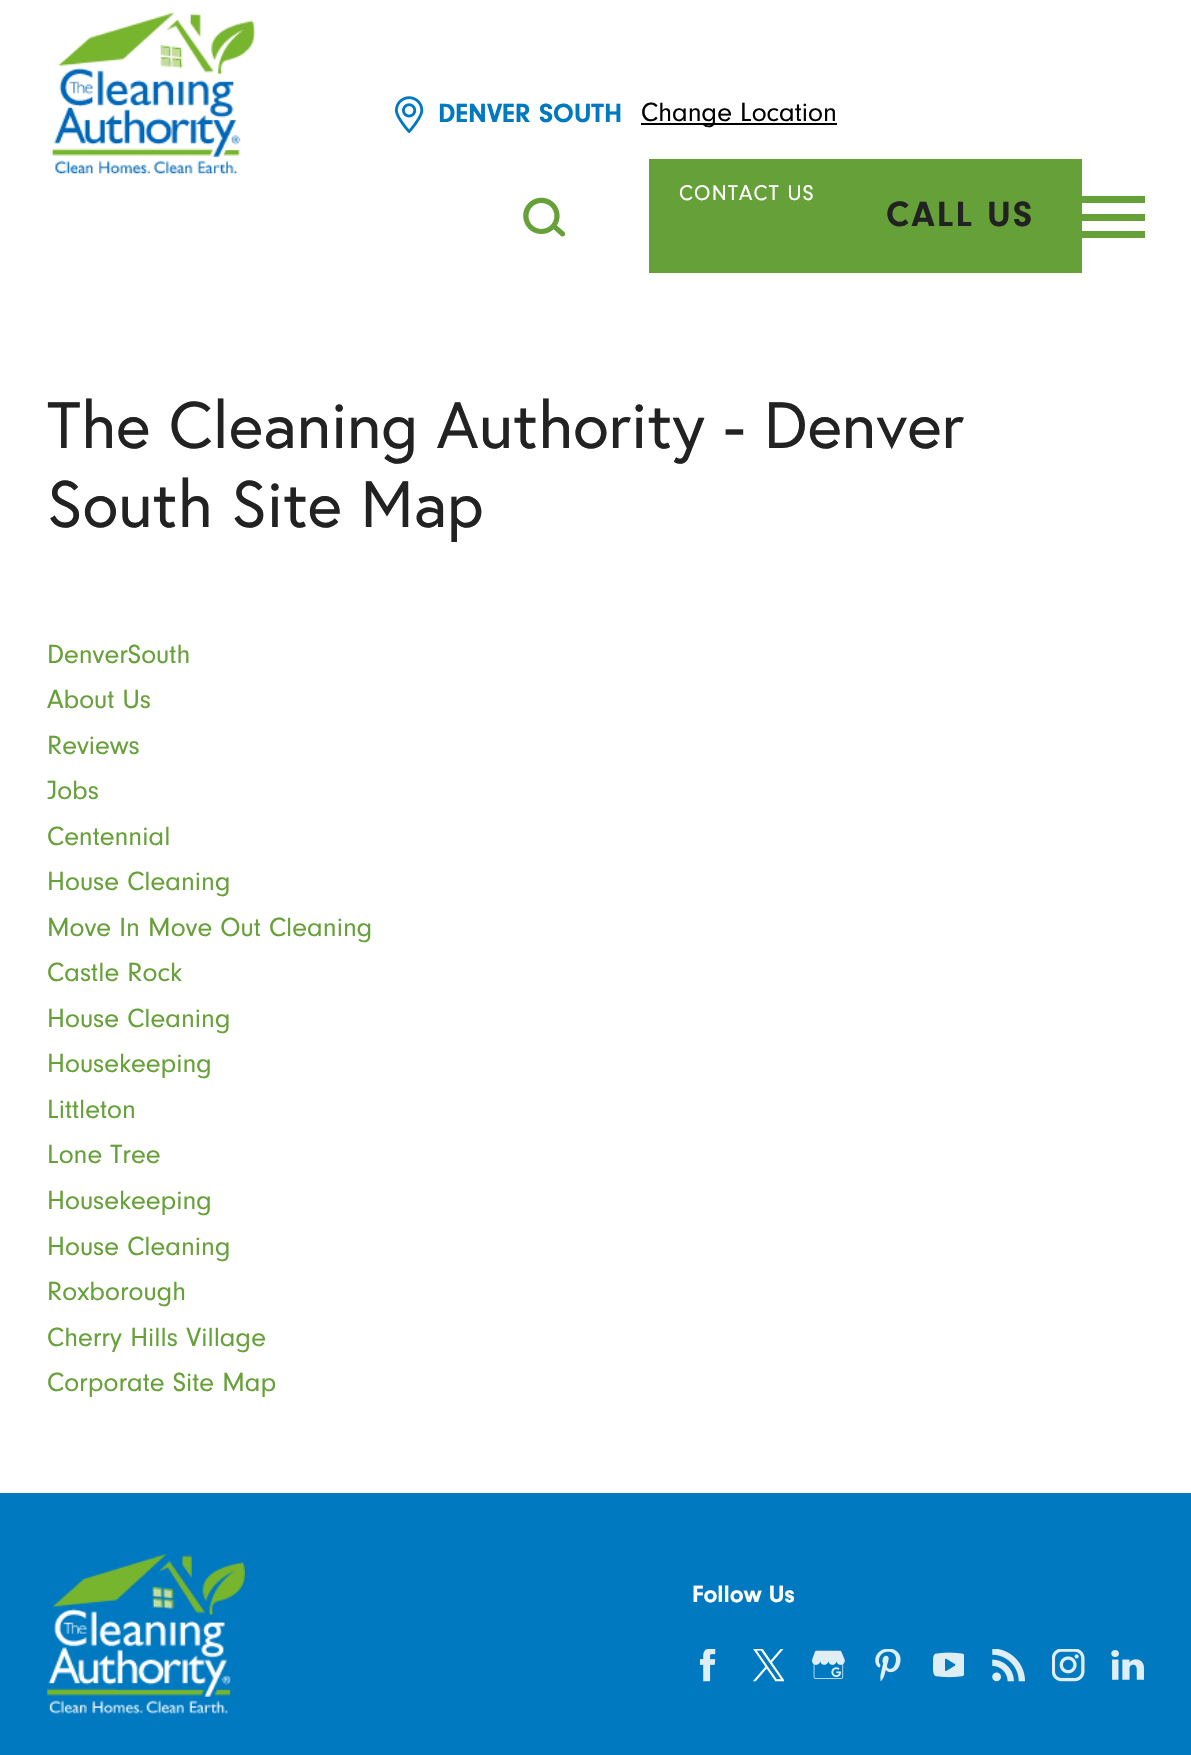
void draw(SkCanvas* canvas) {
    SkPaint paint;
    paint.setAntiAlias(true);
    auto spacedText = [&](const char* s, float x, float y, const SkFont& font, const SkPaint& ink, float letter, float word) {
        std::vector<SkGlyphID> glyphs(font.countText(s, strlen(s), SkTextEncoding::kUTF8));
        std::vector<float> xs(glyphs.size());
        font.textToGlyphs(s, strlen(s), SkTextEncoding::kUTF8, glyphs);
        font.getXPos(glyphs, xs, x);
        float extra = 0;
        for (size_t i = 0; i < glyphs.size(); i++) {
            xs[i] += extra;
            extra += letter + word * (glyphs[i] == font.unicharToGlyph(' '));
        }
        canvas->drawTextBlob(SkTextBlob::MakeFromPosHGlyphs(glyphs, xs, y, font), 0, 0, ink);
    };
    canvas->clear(0xFFFFFFFF);
    canvas->drawImageRect(SkImages::DeferredFromEncodedData(SkData::MakeFromFileName("img1.png")), SkRect::MakeXYWH(52, 12, 204, 162), SkSamplingOptions());
    canvas->drawImageRect(SkImages::DeferredFromEncodedData(SkData::MakeFromFileName("img2.png")), SkRect::MakeXYWH(395, 96, 29, 37), SkSamplingOptions());
    SkFont font1(fontMgr->matchFamilyStyle("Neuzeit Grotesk", SkFontStyle::Bold()), 27.25f);
    font1.setSubpixel(true);
    paint.setColor(0xFF0079C1);
    canvas->drawString("DENVER SOUTH", 438, 122, font1, paint);
    paint.setColor(0xFF000000);
    canvas->drawRect(SkRect::MakeXYWH(641, 123, 196, 2), paint);
    SkFont font2(fontMgr->matchFamilyStyle("Neuzeit Grotesk", SkFontStyle::Normal()), 27.25f);
    font2.setSubpixel(true);
    canvas->drawString("Change Location", 641, 121, font2, paint);
    paint.setColor(0xFF66A038);
    canvas->drawRect(SkRect::MakeXYWH(649, 159, 433, 114), paint);
    SkFont font3(fontMgr->matchFamilyStyle("Neuzeit Grotesk", SkFontStyle::Normal()), 22);
    font3.setSubpixel(true);
    paint.setColor(0xFFFFFFFF);
    spacedText("CONTACT US", 679, 200, font3, paint, 1.25f, 0);
    canvas->drawImageRect(SkImages::DeferredFromEncodedData(SkData::MakeFromFileName("img3.png")), SkRect::MakeXYWH(523, 197, 42, 40), SkSamplingOptions());
    SkFont font4(fontMgr->matchFamilyStyle("Neuzeit Grotesk", SkFontStyle::Bold()), 36.5f);
    font4.setSubpixel(true);
    paint.setColor(0xFF222222);
    spacedText("CALL US", 886, 226, font4, paint, 2.25f, 0);
    paint.setColor(0xFF66A038);
    canvas->drawRect(SkRect::MakeXYWH(1082, 196, 63, 7), paint);
    canvas->drawRect(SkRect::MakeXYWH(1082, 214, 63, 7), paint);
    canvas->drawRect(SkRect::MakeXYWH(1082, 231, 63, 7), paint);
    SkFont font5(fontMgr->matchFamilyStyle("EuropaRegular", SkFontStyle::Normal()), 65.5f);
    font5.setSubpixel(true);
    paint.setColor(0xFF222222);
    spacedText("The Cleaning Authority - Denver", 47, 448, font5, paint, 0.15f, 0);
    spacedText("South Site Map", 47, 527, font5, paint, 0.15f, 0);
    paint.setColor(0xFF66A038);
    canvas->drawString("DenverSouth", 47, 663, font2, paint);
    canvas->drawString("About Us", 47, 708, font2, paint);
    canvas->drawString("Reviews", 47, 754, font2, paint);
    canvas->drawString("Jobs", 47, 799, font2, paint);
    canvas->drawString("Centennial", 47, 845, font2, paint);
    canvas->drawString("House Cleaning", 47, 890, font2, paint);
    canvas->drawString("Move In Move Out Cleaning", 47, 936, font2, paint);
    canvas->drawString("Castle Rock", 47, 981, font2, paint);
    canvas->drawString("House Cleaning", 47, 1027, font2, paint);
    canvas->drawString("Housekeeping", 47, 1072, font2, paint);
    canvas->drawString("Littleton", 47, 1118, font2, paint);
    canvas->drawString("Lone Tree", 47, 1163, font2, paint);
    canvas->drawString("Housekeeping", 47, 1209, font2, paint);
    canvas->drawString("House Cleaning", 47, 1255, font2, paint);
    canvas->drawString("Roxborough", 47, 1300, font2, paint);
    canvas->drawString("Cherry Hills Village", 47, 1346, font2, paint);
    canvas->drawString("Corporate Site Map", 47, 1391, font2, paint);
    paint.setColor(0xFF0079C1);
    canvas->drawRect(SkRect::MakeXYWH(0, 1493, 1191, 262), paint);
    canvas->drawImageRect(SkImages::DeferredFromEncodedData(SkData::MakeFromFileName("img4.png")), SkRect::MakeXYWH(47, 1554, 198, 160), SkSamplingOptions());
    SkFont font6(fontMgr->matchFamilyStyle("Neuzeit Grotesk", SkFontStyle::Bold()), 24.5f);
    font6.setSubpixel(true);
    paint.setColor(0xFFFFFFFF);
    canvas->drawString("Follow Us", 692, 1602, font6, paint);
    canvas->drawImageRect(SkImages::DeferredFromEncodedData(SkData::MakeFromFileName("img5.png")), SkRect::MakeXYWH(699, 1649, 17, 33), SkSamplingOptions());
    canvas->drawImageRect(SkImages::DeferredFromEncodedData(SkData::MakeFromFileName("img6.png")), SkRect::MakeXYWH(753, 1649, 31, 33), SkSamplingOptions());
    canvas->drawImageRect(SkImages::DeferredFromEncodedData(SkData::MakeFromFileName("img7.png")), SkRect::MakeXYWH(812, 1650, 33, 29), SkSamplingOptions());
    canvas->drawImageRect(SkImages::DeferredFromEncodedData(SkData::MakeFromFileName("img8.png")), SkRect::MakeXYWH(875, 1649, 26, 33), SkSamplingOptions());
    canvas->drawImageRect(SkImages::DeferredFromEncodedData(SkData::MakeFromFileName("img9.png")), SkRect::MakeXYWH(933, 1652, 31, 26), SkSamplingOptions());
    canvas->drawImageRect(SkImages::DeferredFromEncodedData(SkData::MakeFromFileName("img10.png")), SkRect::MakeXYWH(992, 1649, 33, 33), SkSamplingOptions());
    canvas->drawImageRect(SkImages::DeferredFromEncodedData(SkData::MakeFromFileName("img11.png")), SkRect::MakeXYWH(1052, 1649, 33, 33), SkSamplingOptions());
    canvas->drawImageRect(SkImages::DeferredFromEncodedData(SkData::MakeFromFileName("img12.png")), SkRect::MakeXYWH(1111, 1650, 33, 30), SkSamplingOptions());
}
